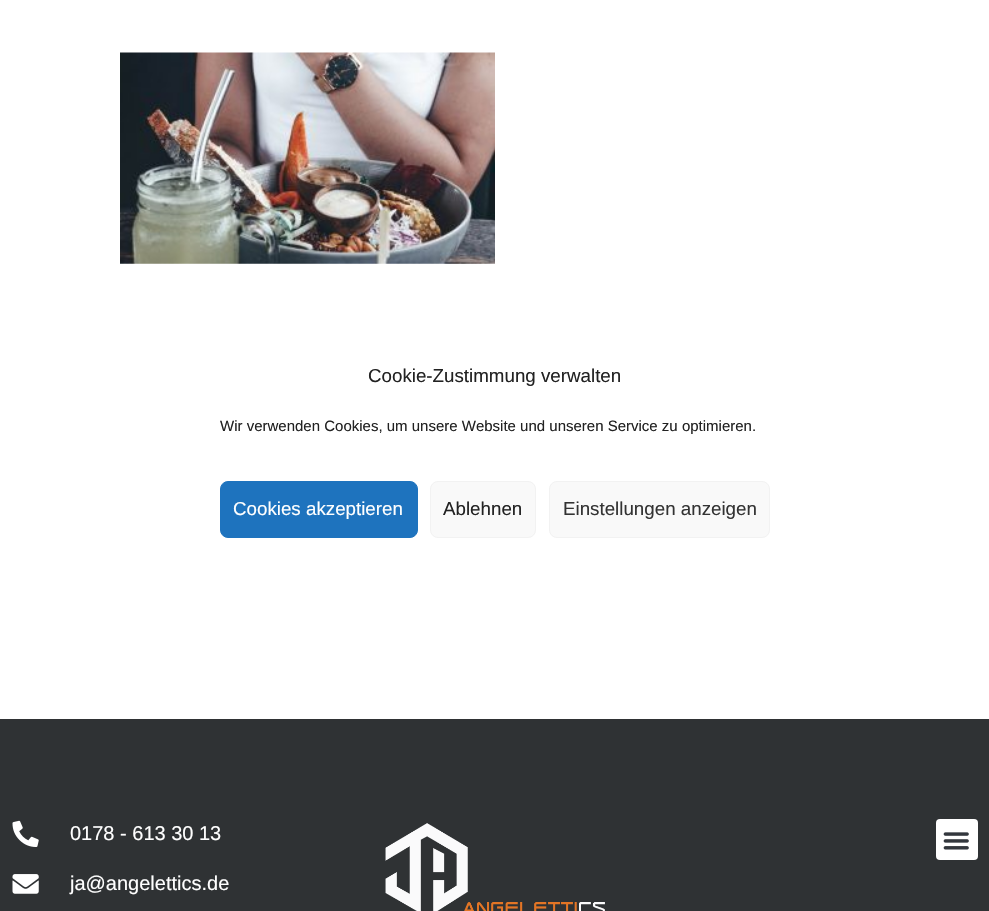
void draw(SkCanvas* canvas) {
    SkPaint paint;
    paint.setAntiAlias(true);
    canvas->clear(0xFFFFFFFF);
    canvas->drawImageRect(SkImages::DeferredFromEncodedData(SkData::MakeFromFileName("img1.png")), SkRect::MakeXYWH(120, 52, 375, 212), SkSamplingOptions());
    SkFont font1(fontMgr->matchFamilyStyle("Liberation Sans", SkFontStyle::Normal()), 18.75f);
    font1.setSubpixel(true);
    paint.setColor(0xFF222222);
    canvas->drawString("Cookie-Zustimmung verwalten", 368, 382, font1, paint);
    SkFont font2(fontMgr->matchFamilyStyle("Liberation Sans", SkFontStyle::Normal()), 15);
    font2.setSubpixel(true);
    canvas->drawString("Wir verwenden Cookies, um unsere Website und unseren Service zu optimieren.", 220, 431, font2, paint);
    paint.setColor(0xFF1E73BE);
    canvas->drawRoundRect(SkRect::MakeXYWH(220.5f, 481.5f, 197, 56), 7.5f, 7.5f, paint);
    paint.setStyle(SkPaint::kStroke_Style);
    paint.setStrokeWidth(1);
    canvas->drawRoundRect(SkRect::MakeXYWH(220.5f, 481.5f, 197, 56), 7.5f, 7.5f, paint);
    paint.setStyle(SkPaint::kFill_Style);
    paint.setColor(0xFFFFFFFF);
    canvas->drawString("Cookies akzeptieren", 233, 515, font1, paint);
    paint.setColor(0xFFF9F9F9);
    canvas->drawRoundRect(SkRect::MakeXYWH(430.5f, 481.5f, 105, 56), 7.5f, 7.5f, paint);
    paint.setStyle(SkPaint::kStroke_Style);
    paint.setColor(0xFFF2F2F2);
    canvas->drawRoundRect(SkRect::MakeXYWH(430.5f, 481.5f, 105, 56), 7.5f, 7.5f, paint);
    paint.setStyle(SkPaint::kFill_Style);
    paint.setColor(0xFF222222);
    canvas->drawString("Ablehnen", 443, 515, font1, paint);
    paint.setColor(0xFFF9F9F9);
    canvas->drawRoundRect(SkRect::MakeXYWH(549.5f, 481.5f, 220, 56), 7.5f, 7.5f, paint);
    paint.setStyle(SkPaint::kStroke_Style);
    paint.setColor(0xFFF2F2F2);
    canvas->drawRoundRect(SkRect::MakeXYWH(549.5f, 481.5f, 220, 56), 7.5f, 7.5f, paint);
    paint.setStyle(SkPaint::kFill_Style);
    paint.setColor(0xFF333333);
    canvas->drawString("Einstellungen anzeigen", 563, 515, font1, paint);
    paint.setColor(0xFF2F3234);
    canvas->drawRect(SkRect::MakeXYWH(0, 719, 989, 192), paint);
    canvas->drawImageRect(SkImages::DeferredFromEncodedData(SkData::MakeFromFileName("img2.png")), SkRect::MakeXYWH(385, 823, 220, 88), SkSamplingOptions());
    canvas->drawImageRect(SkImages::DeferredFromEncodedData(SkData::MakeFromFileName("img3.png")), SkRect::MakeXYWH(12, 820, 27, 27), SkSamplingOptions());
    SkFont font3(fontMgr->matchFamilyStyle("Liberation Sans", SkFontStyle::Normal()), 20);
    font3.setSubpixel(true);
    paint.setColor(0xFFFFFFFF);
    canvas->drawString("0178 - 613 30 13", 70, 840, font3, paint);
    canvas->drawImageRect(SkImages::DeferredFromEncodedData(SkData::MakeFromFileName("img4.png")), SkRect::MakeXYWH(12, 874, 27, 20), SkSamplingOptions());
    canvas->drawString("ja@angelettics.de", 70, 890, font3, paint);
    canvas->drawRoundRect(SkRect::MakeXYWH(936, 819, 42, 41), 4, 4, paint);
    canvas->drawImageRect(SkImages::DeferredFromEncodedData(SkData::MakeFromFileName("img5.png")), SkRect::MakeXYWH(943, 832, 26, 18), SkSamplingOptions());
}
